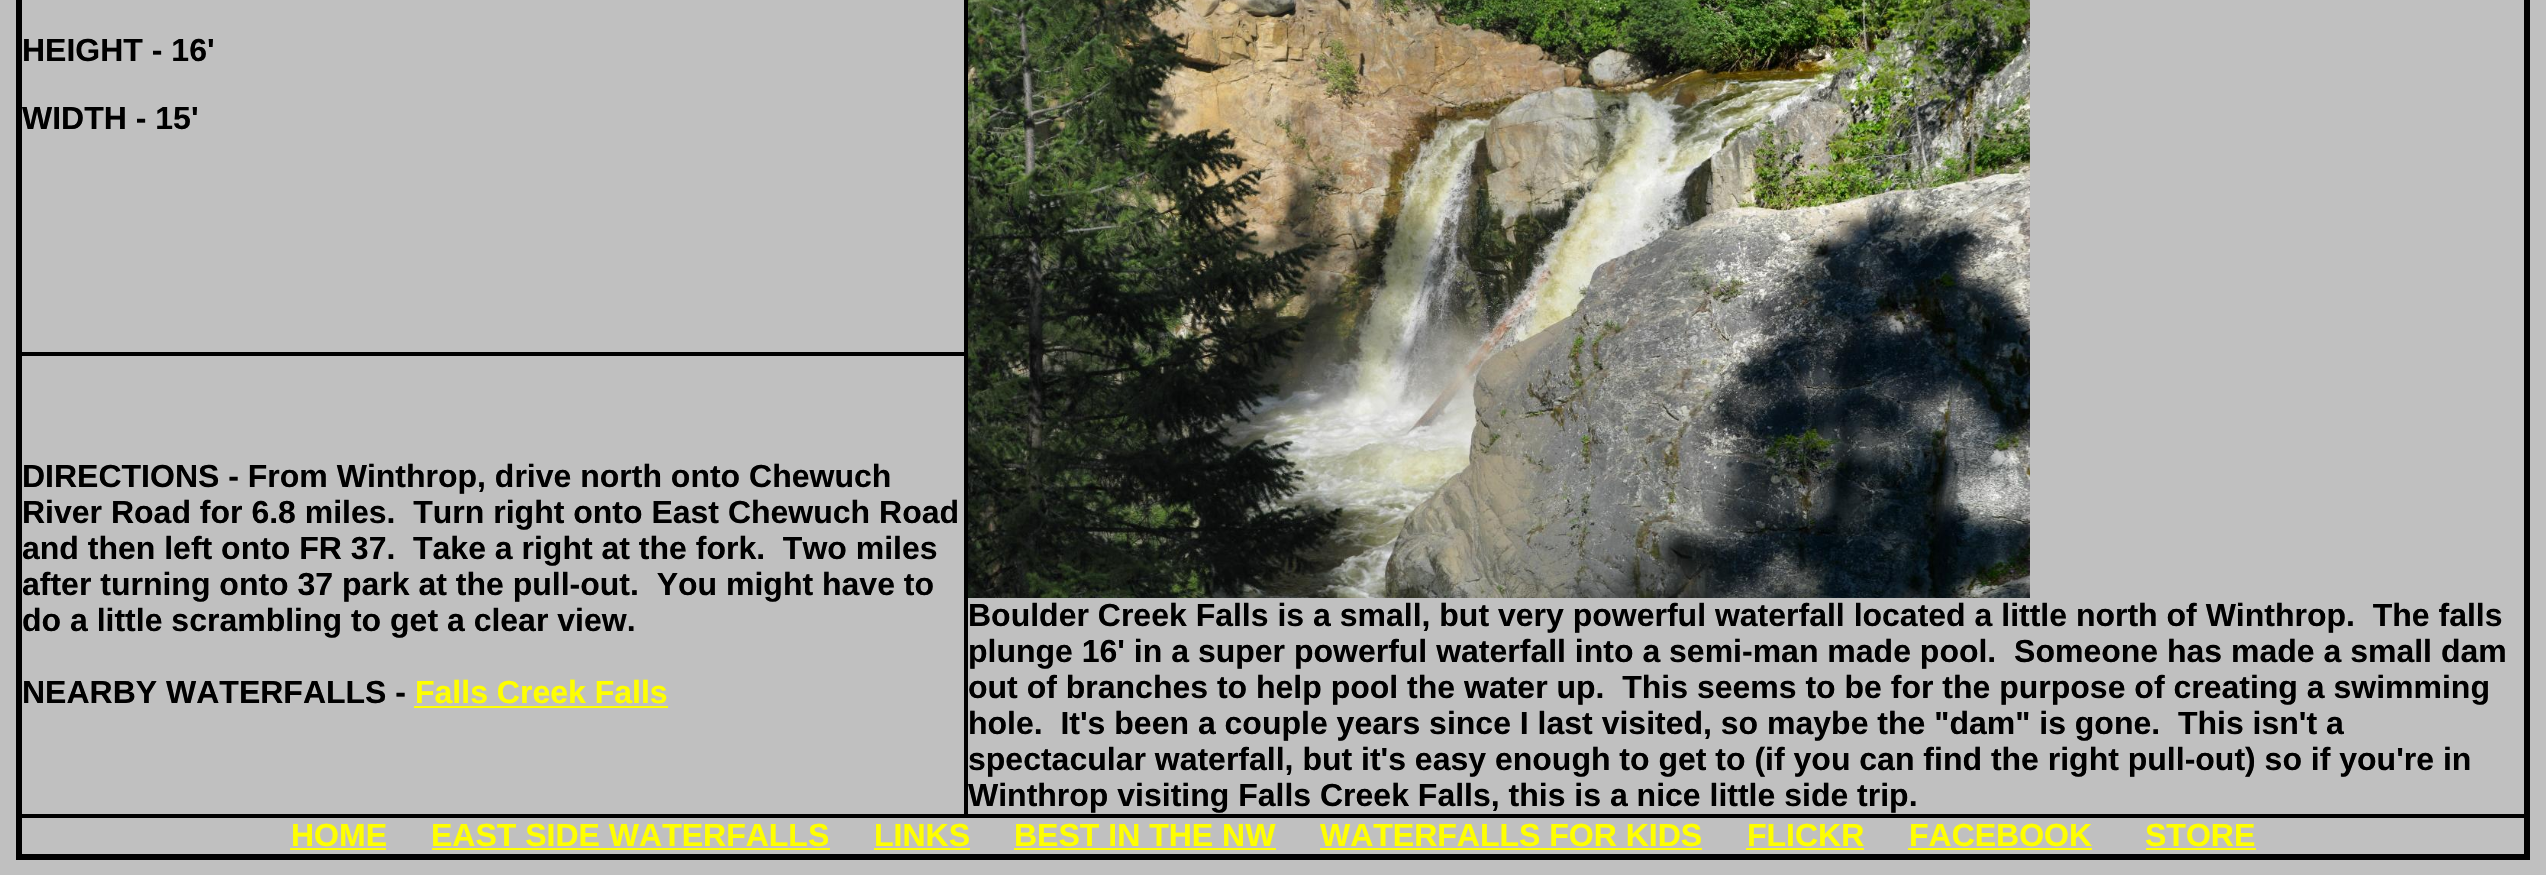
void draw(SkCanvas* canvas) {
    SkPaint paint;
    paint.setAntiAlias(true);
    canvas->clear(0xFFC0C0C0);
    paint.setStyle(SkPaint::kStroke_Style);
    paint.setStrokeWidth(4);
    paint.setColor(0xFF000000);
    canvas->drawRect(SkRect::MakeXYWH(18, -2, 2510, 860), paint);
    paint.setStrokeWidth(2);
    canvas->drawRect(SkRect::MakeXYWH(21, -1, 944, 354), paint);
    SkFont font1(fontMgr->matchFamilyStyle("Liberation Sans", SkFontStyle::Bold()), 32);
    font1.setSubpixel(true);
    paint.setStyle(SkPaint::kFill_Style);
    canvas->drawString("HEIGHT - 16'", 22, 61, font1, paint);
    canvas->drawString("WIDTH - 15'", 22, 129, font1, paint);
    paint.setStyle(SkPaint::kStroke_Style);
    canvas->drawRect(SkRect::MakeXYWH(967, -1, 1558, 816), paint);
    canvas->drawImageRect(SkImages::DeferredFromEncodedData(SkData::MakeFromFileName("img1.png")), SkRect::MakeXYWH(968, 0, 1062, 598), SkSamplingOptions());
    paint.setStyle(SkPaint::kFill_Style);
    canvas->drawString("Boulder Creek Falls is a small, but very powerful waterfall located a little north of Winthrop.  The falls", 968, 626, font1, paint);
    canvas->drawString("plunge 16' in a super powerful waterfall into a semi-man made pool.  Someone has made a small dam", 968, 662, font1, paint);
    canvas->drawString("out of branches to help pool the water up.  This seems to be for the purpose of creating a swimming", 968, 698, font1, paint);
    canvas->drawString("hole.  It's been a couple years since I last visited, so maybe the \"dam\" is gone.  This isn't a", 968, 734, font1, paint);
    canvas->drawString("spectacular waterfall, but it's easy enough to get to (if you can find the right pull-out) so if you're in", 968, 770, font1, paint);
    canvas->drawString("Winthrop visiting Falls Creek Falls, this is a nice little side trip.", 968, 806, font1, paint);
    paint.setStyle(SkPaint::kStroke_Style);
    canvas->drawRect(SkRect::MakeXYWH(21, 355, 944, 460), paint);
    paint.setStyle(SkPaint::kFill_Style);
    canvas->drawString("DIRECTIONS - From Winthrop, drive north onto Chewuch", 22, 487, font1, paint);
    canvas->drawString("River Road for 6.8 miles.  Turn right onto East Chewuch Road", 22, 523, font1, paint);
    canvas->drawString("and then left onto FR 37.", 22, 559, font1, paint);
    canvas->drawString("Take a right at the fork.  Two miles", 413, 559, font1, paint);
    canvas->drawString("after turning onto 37 park at the pull-out.  You might have to", 22, 595, font1, paint);
    canvas->drawString("do a little scrambling to get a clear view.", 22, 631, font1, paint);
    canvas->drawString("NEARBY WATERFALLS -", 22, 703, font1, paint);
    paint.setColor(0xFFFFFF00);
    canvas->drawString("Falls Creek Falls", 415, 703, font1, paint);
    canvas->drawRect(SkRect::MakeXYWH(414, 706, 254, 2), paint);
    paint.setStyle(SkPaint::kStroke_Style);
    paint.setColor(0xFF000000);
    canvas->drawRect(SkRect::MakeXYWH(21, 817, 2504, 38), paint);
    paint.setStyle(SkPaint::kFill_Style);
    paint.setColor(0xFFFFFF00);
    canvas->drawString("HOME", 291, 846, font1, paint);
    canvas->drawRect(SkRect::MakeXYWH(290, 848, 96, 2), paint);
    canvas->drawString("EAST SIDE WATERFALLS", 431, 846, font1, paint);
    canvas->drawRect(SkRect::MakeXYWH(432, 848, 398, 2), paint);
    canvas->drawString("LINKS", 874, 846, font1, paint);
    canvas->drawRect(SkRect::MakeXYWH(874, 848, 96, 2), paint);
    canvas->drawString("BEST IN THE NW", 1014, 846, font1, paint);
    canvas->drawRect(SkRect::MakeXYWH(1014, 848, 262, 2), paint);
    canvas->drawString("WATERFALLS FOR KIDS", 1320, 846, font1, paint);
    canvas->drawRect(SkRect::MakeXYWH(1320, 848, 382, 2), paint);
    canvas->drawString("FLICKR", 1747, 846, font1, paint);
    canvas->drawRect(SkRect::MakeXYWH(1746, 848, 118, 2), paint);
    canvas->drawString("FACEBOOK", 1909, 846, font1, paint);
    canvas->drawRect(SkRect::MakeXYWH(1908, 848, 184, 2), paint);
    canvas->drawString("STORE", 2145, 846, font1, paint);
    canvas->drawRect(SkRect::MakeXYWH(2146, 848, 110, 2), paint);
}
